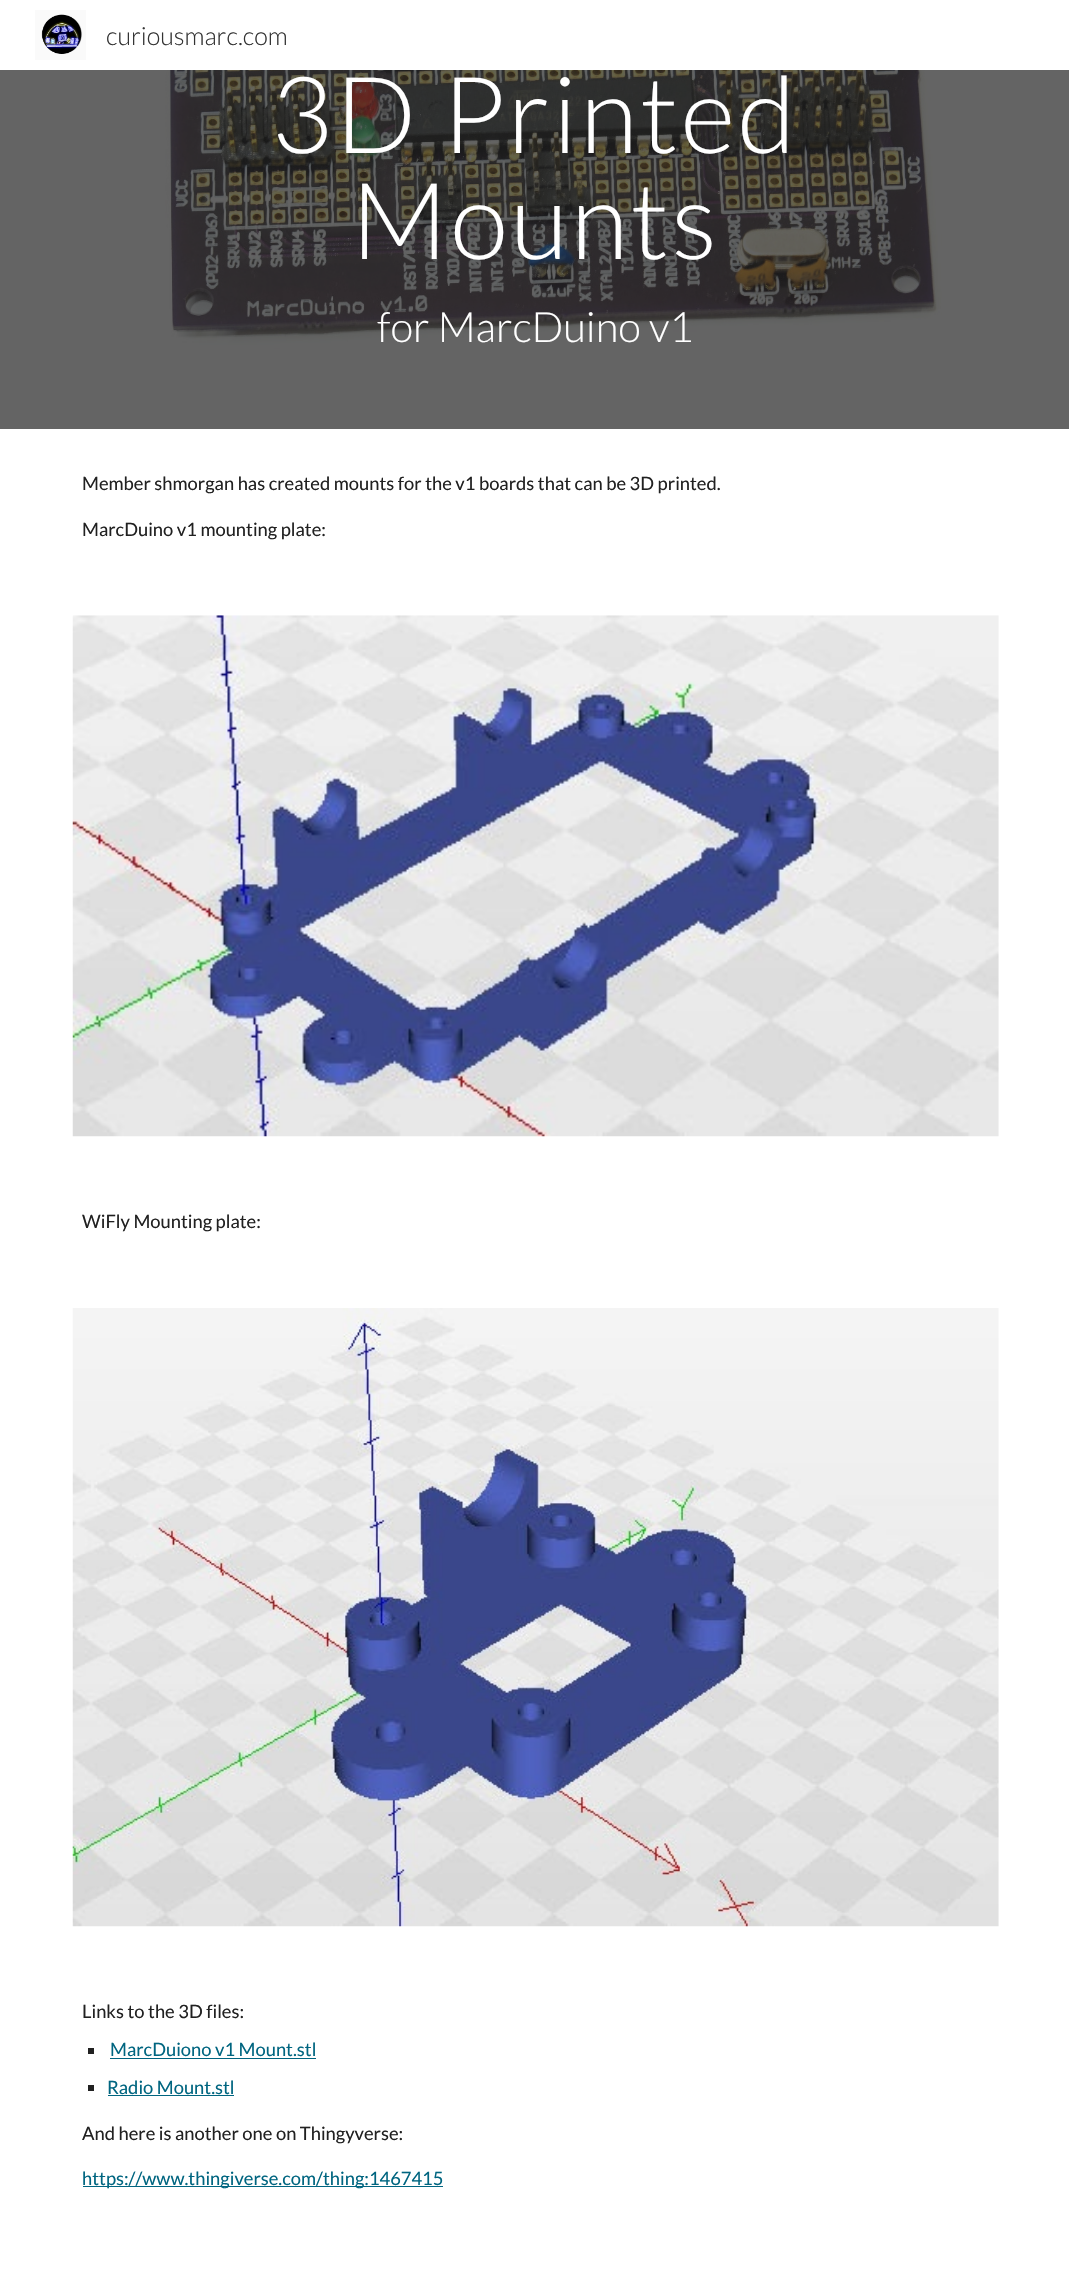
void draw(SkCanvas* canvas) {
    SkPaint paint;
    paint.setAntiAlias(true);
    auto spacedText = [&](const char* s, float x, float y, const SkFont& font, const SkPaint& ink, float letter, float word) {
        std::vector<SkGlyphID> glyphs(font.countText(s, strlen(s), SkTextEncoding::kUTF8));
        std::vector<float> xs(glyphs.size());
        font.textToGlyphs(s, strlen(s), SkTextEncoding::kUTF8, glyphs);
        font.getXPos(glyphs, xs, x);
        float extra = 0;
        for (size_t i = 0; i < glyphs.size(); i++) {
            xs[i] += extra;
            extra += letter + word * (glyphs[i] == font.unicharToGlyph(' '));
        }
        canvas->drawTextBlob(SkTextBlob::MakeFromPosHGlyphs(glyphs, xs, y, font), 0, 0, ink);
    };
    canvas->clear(0xFFFFFFFF);
    canvas->drawImageRect(SkImages::DeferredFromEncodedData(SkData::MakeFromFileName("img1.png")), SkRect::MakeXYWH(35, 10, 51, 50), SkSamplingOptions());
    SkFont font1(fontMgr->matchFamilyStyle("Lato", SkFontStyle(300, SkFontStyle::kNormal_Width, SkFontStyle::kUpright_Slant)), 25);
    font1.setSubpixel(true);
    paint.setColor(0xFF333333);
    canvas->drawString("curiousmarc.com", 106, 45, font1, paint);
    canvas->drawImageRect(SkImages::DeferredFromEncodedData(SkData::MakeFromFileName("img2.png")), SkRect::MakeXYWH(0, 70, 1069, 359), SkSamplingOptions());
    SkFont font2(fontMgr->matchFamilyStyle("Lato", SkFontStyle(300, SkFontStyle::kNormal_Width, SkFontStyle::kUpright_Slant)), 106.5f);
    font2.setSubpixel(true);
    paint.setColor(0xFFFFFFFF);
    spacedText("3D Printed", 271, 153, font2, paint, 2.5f, 0);
    spacedText("Mounts", 351, 259, font2, paint, 2.5f, 0);
    SkFont font3(fontMgr->matchFamilyStyle("Lato", SkFontStyle(300, SkFontStyle::kNormal_Width, SkFontStyle::kUpright_Slant)), 41.75f);
    font3.setSubpixel(true);
    canvas->drawString("for MarcDuino v1", 377, 342, font3, paint);
    SkFont font4(fontMgr->matchFamilyStyle("Lato", SkFontStyle::Normal()), 18.35f);
    font4.setSubpixel(true);
    paint.setColor(0xFF212121);
    canvas->drawString("Member shmorgan has created mounts for the v1 boards that can be 3D printed.", 82, 490, font4, paint);
    canvas->drawString("MarcDuino v1 mounting plate:", 82, 536, font4, paint);
    canvas->drawImageRect(SkImages::DeferredFromEncodedData(SkData::MakeFromFileName("img3.png")), SkRect::MakeXYWH(72, 615, 927, 522), SkSamplingOptions());
    canvas->drawString("WiFly Mounting plate:", 82, 1228, font4, paint);
    canvas->drawImageRect(SkImages::DeferredFromEncodedData(SkData::MakeFromFileName("img4.png")), SkRect::MakeXYWH(72, 1308, 927, 619), SkSamplingOptions());
    canvas->drawString("Links to the 3D files:", 82, 2018, font4, paint);
    canvas->drawRect(SkRect::MakeXYWH(88, 2048, 6, 6), paint);
    paint.setColor(0xFF006580);
    canvas->drawString("MarcDuiono v1 Mount.stl", 110, 2056, font4, paint);
    canvas->drawRect(SkRect::MakeXYWH(110, 2058, 206, 1), paint);
    paint.setColor(0xFF212121);
    canvas->drawRect(SkRect::MakeXYWH(88, 2085, 6, 6), paint);
    paint.setColor(0xFF006580);
    canvas->drawString("Radio Mount.stl", 107, 2094, font4, paint);
    canvas->drawRect(SkRect::MakeXYWH(108, 2095, 126, 1), paint);
    paint.setColor(0xFF212121);
    canvas->drawString("And here is another one on Thingyverse:", 82, 2140, font4, paint);
    paint.setColor(0xFF006580);
    canvas->drawRect(SkRect::MakeXYWH(83, 2186, 360, 1), paint);
    canvas->drawString("https://www.thingiverse.com/thing:1467415", 82, 2185, font4, paint);
}
